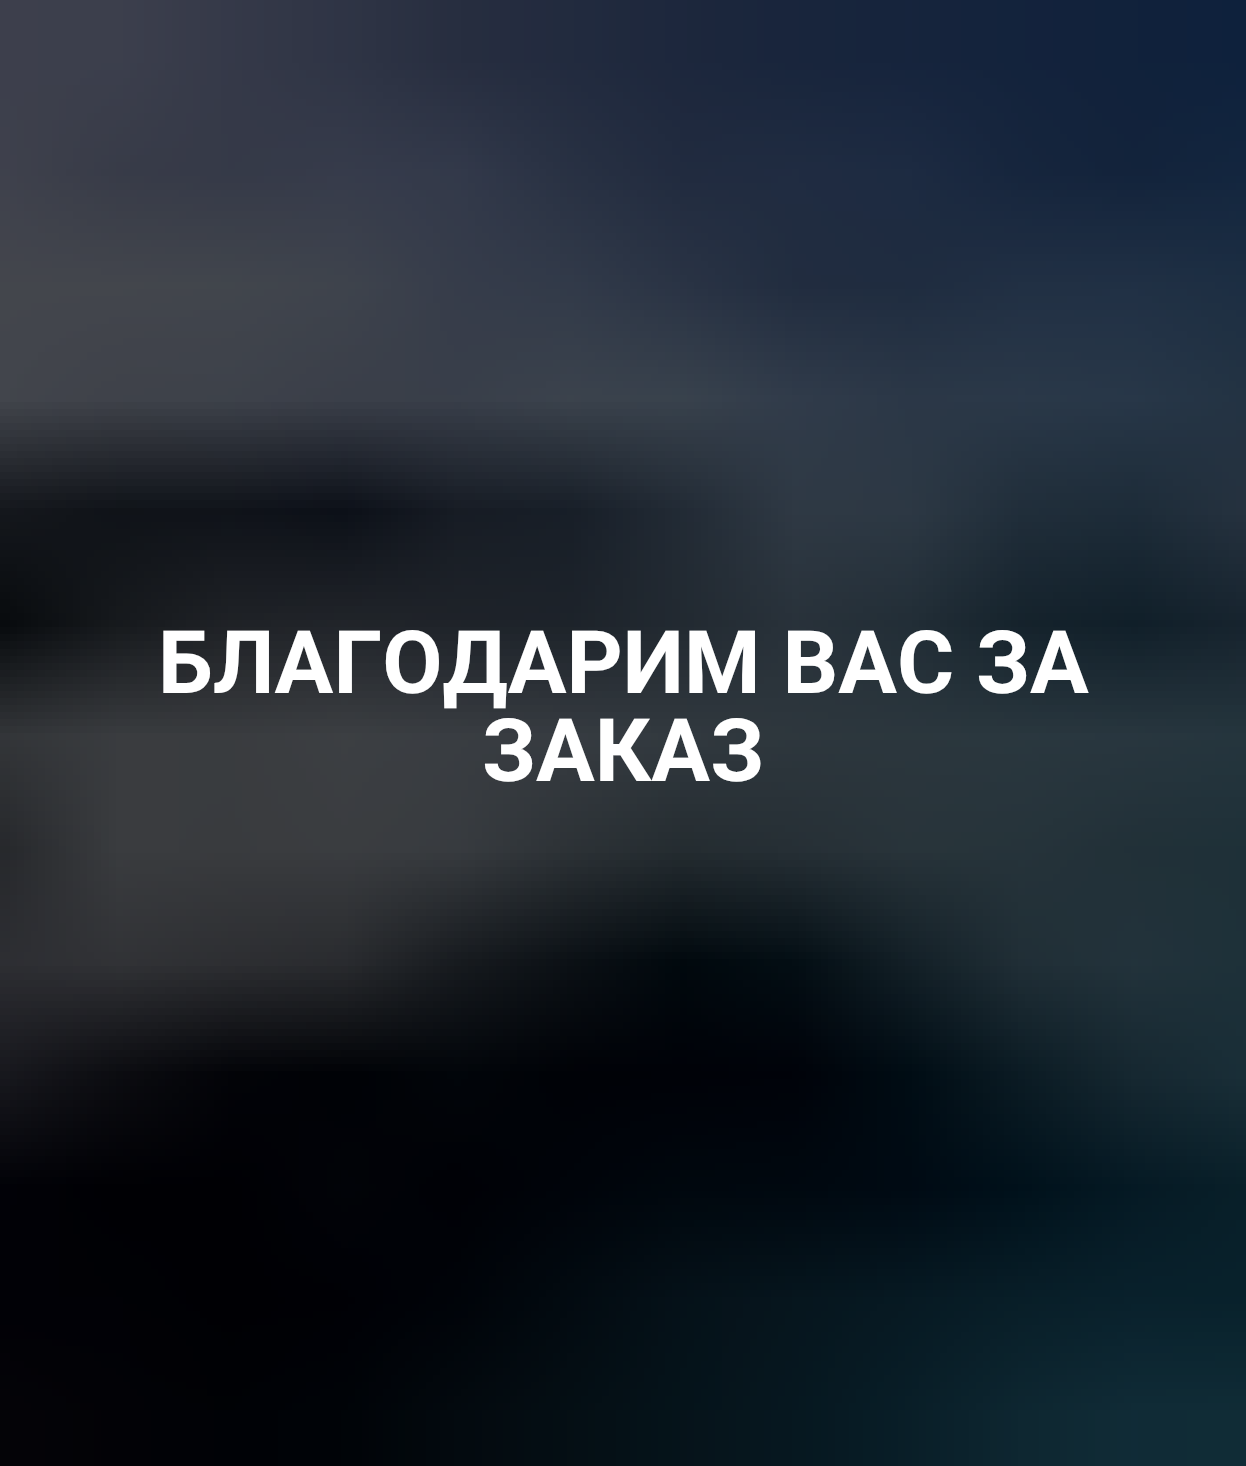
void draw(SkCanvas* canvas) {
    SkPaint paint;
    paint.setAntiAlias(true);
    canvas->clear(0xFFFFFFFF);
    canvas->drawImageRect(SkImages::DeferredFromEncodedData(SkData::MakeFromFileName("img1.png")), SkRect::MakeXYWH(0, 0, 1246, 1466), SkSamplingOptions());
    SkFont font1(fontMgr->matchFamilyStyle("Roboto", SkFontStyle::Bold()), 87.5f);
    font1.setSubpixel(true);
    paint.setColor(0xFFFFFFFF);
    canvas->drawString("БЛАГОДАРИМ ВАС ЗА", 158, 693, font1, paint);
    canvas->drawString("ЗАКАЗ", 482, 781, font1, paint);
}
